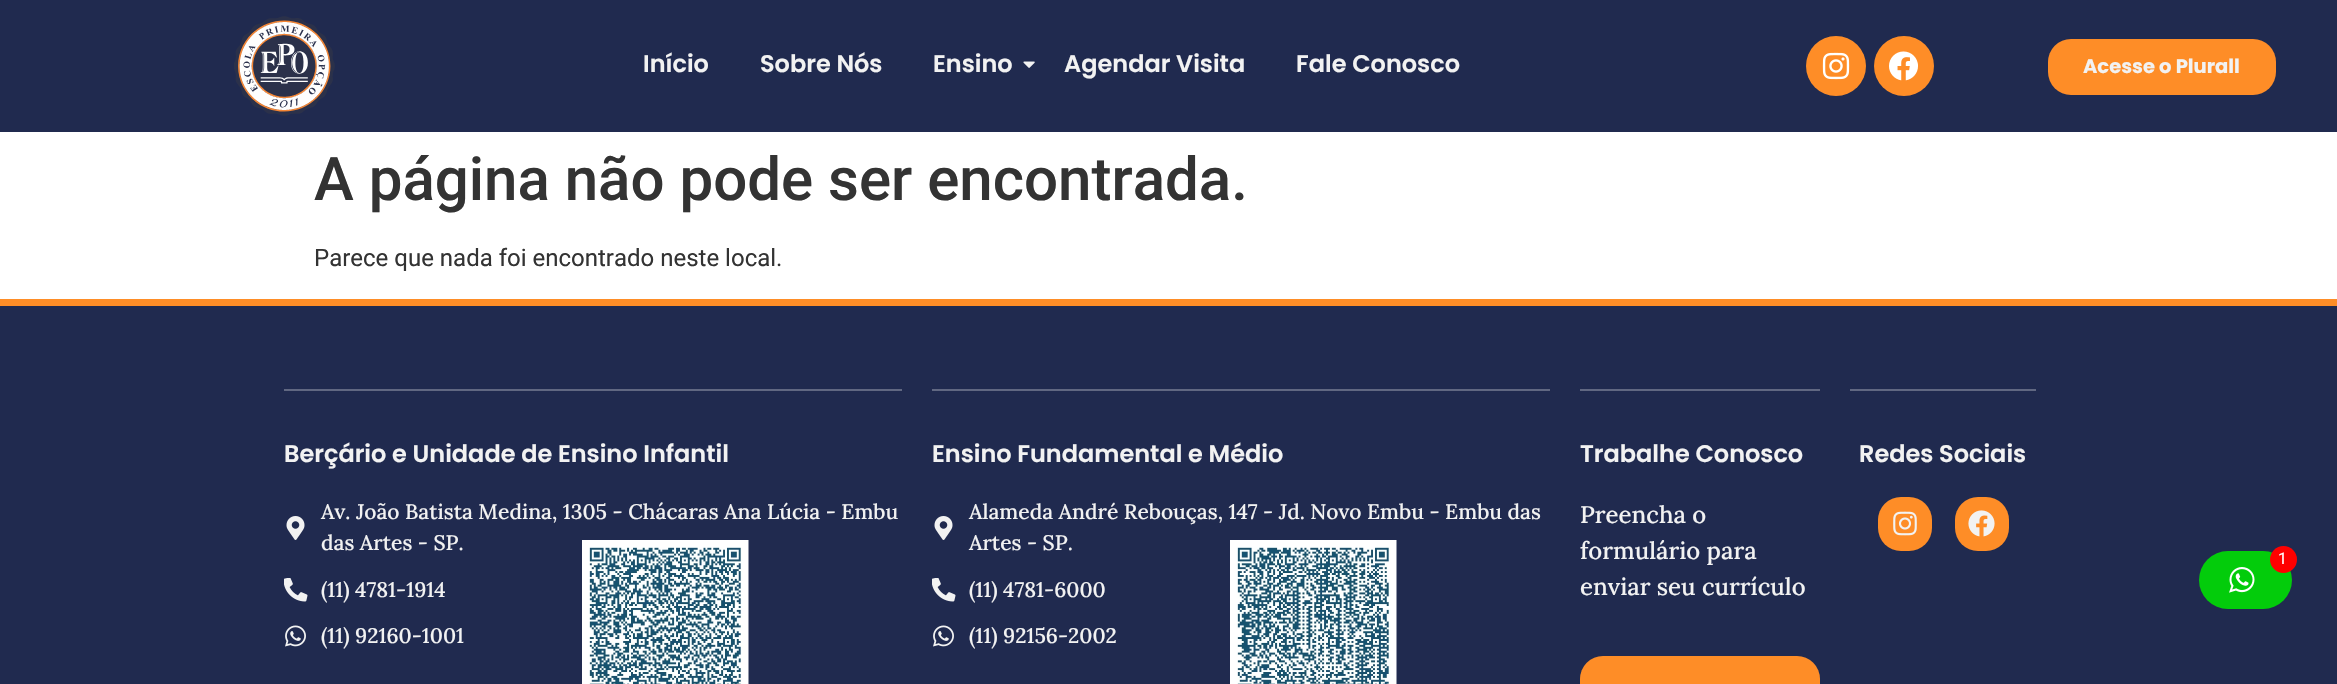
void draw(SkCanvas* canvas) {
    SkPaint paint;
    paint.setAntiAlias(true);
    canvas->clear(0xFFFFFFFF);
    paint.setColor(0xFF202A4F);
    canvas->drawRect(SkRect::MakeXYWH(0, 0, 2337, 132), paint);
    canvas->drawImageRect(SkImages::DeferredFromEncodedData(SkData::MakeFromFileName("img1.png")), SkRect::MakeXYWH(234, 16, 101, 100), SkSamplingOptions());
    SkFont font1(fontMgr->matchFamilyStyle("Poppins", SkFontStyle(600, SkFontStyle::kNormal_Width, SkFontStyle::kUpright_Slant)), 24);
    font1.setSubpixel(true);
    paint.setColor(0xFFF2F2F2);
    canvas->drawString("Início", 643, 72, font1, paint);
    canvas->drawString("Sobre Nós", 760, 72, font1, paint);
    canvas->drawString("Ensino", 933, 72, font1, paint);
    canvas->drawImageRect(SkImages::DeferredFromEncodedData(SkData::MakeFromFileName("img2.png")), SkRect::MakeXYWH(1023, 61, 12, 7), SkSamplingOptions());
    canvas->drawString("Agendar Visita", 1064, 72, font1, paint);
    canvas->drawString("Fale Conosco", 1296, 72, font1, paint);
    paint.setColor(0xFFFE8D27);
    canvas->drawCircle(1836, 66, 30, paint);
    canvas->drawImageRect(SkImages::DeferredFromEncodedData(SkData::MakeFromFileName("img3.png")), SkRect::MakeXYWH(1822, 52, 28, 28), SkSamplingOptions());
    canvas->drawCircle(1904, 66, 30, paint);
    canvas->drawImageRect(SkImages::DeferredFromEncodedData(SkData::MakeFromFileName("img4.png")), SkRect::MakeXYWH(1889, 51, 29, 30), SkSamplingOptions());
    canvas->drawRoundRect(SkRect::MakeXYWH(2048, 39, 228, 56), 23, 23, paint);
    SkFont font2(fontMgr->matchFamilyStyle("Poppins", SkFontStyle::Bold()), 19.5f);
    font2.setSubpixel(true);
    paint.setColor(0xFFF2F2F2);
    canvas->drawString("Acesse o Plurall", 2083, 73, font2, paint);
    SkFont font3(fontMgr->matchFamilyStyle("Roboto", SkFontStyle(500, SkFontStyle::kNormal_Width, SkFontStyle::kUpright_Slant)), 60);
    font3.setSubpixel(true);
    paint.setColor(0xFF333333);
    canvas->drawString("A página não pode ser encontrada.", 314, 200, font3, paint);
    SkFont font4(fontMgr->matchFamilyStyle("Roboto", SkFontStyle::Normal()), 24);
    font4.setSubpixel(true);
    canvas->drawString("Parece que nada foi encontrado neste local.", 314, 266, font4, paint);
    paint.setColor(0xFFFE8D27);
    canvas->drawRect(SkRect::MakeXYWH(0, 299, 2337, 7), paint);
    paint.setColor(0xFF202A4F);
    canvas->drawRect(SkRect::MakeXYWH(0, 306, 2337, 378), paint);
    paint.setColor(0xFF616882);
    canvas->drawRect(SkRect::MakeXYWH(284, 389, 618, 2), paint);
    paint.setColor(0xFFF2F2F2);
    canvas->drawString("Berçário e Unidade de Ensino Infantil", 284, 462, font1, paint);
    canvas->drawImageRect(SkImages::DeferredFromEncodedData(SkData::MakeFromFileName("img5.png")), SkRect::MakeXYWH(286, 516, 19, 24), SkSamplingOptions());
    SkFont font5(fontMgr->matchFamilyStyle("Lora", SkFontStyle(500, SkFontStyle::kNormal_Width, SkFontStyle::kUpright_Slant)), 21);
    font5.setSubpixel(true);
    canvas->drawString("Av. João Batista Medina, 1305 - Chácaras Ana Lúcia - Embu", 321, 519, font5, paint);
    canvas->drawString("das Artes - SP.", 321, 550, font5, paint);
    canvas->drawImageRect(SkImages::DeferredFromEncodedData(SkData::MakeFromFileName("img6.png")), SkRect::MakeXYWH(284, 578, 24, 24), SkSamplingOptions());
    canvas->drawString("(11) 4781-1914", 321, 597, font5, paint);
    canvas->drawImageRect(SkImages::DeferredFromEncodedData(SkData::MakeFromFileName("img7.png")), SkRect::MakeXYWH(285, 625, 21, 22), SkSamplingOptions());
    canvas->drawString("(11) 92160-1001", 321, 643, font5, paint);
    canvas->drawImageRect(SkImages::DeferredFromEncodedData(SkData::MakeFromFileName("img8.png")), SkRect::MakeXYWH(582, 540, 167, 144), SkSamplingOptions());
    paint.setColor(0xFF616882);
    canvas->drawRect(SkRect::MakeXYWH(932, 389, 618, 2), paint);
    paint.setColor(0xFFF2F2F2);
    canvas->drawString("Ensino Fundamental e Médio", 932, 462, font1, paint);
    canvas->drawImageRect(SkImages::DeferredFromEncodedData(SkData::MakeFromFileName("img5.png")), SkRect::MakeXYWH(934, 516, 19, 24), SkSamplingOptions());
    canvas->drawString("Alameda André Rebouças, 147 - Jd. Novo Embu - Embu das", 969, 519, font5, paint);
    canvas->drawString("Artes - SP.", 969, 550, font5, paint);
    canvas->drawImageRect(SkImages::DeferredFromEncodedData(SkData::MakeFromFileName("img6.png")), SkRect::MakeXYWH(932, 578, 24, 24), SkSamplingOptions());
    canvas->drawString("(11) 4781-6000", 969, 597, font5, paint);
    canvas->drawImageRect(SkImages::DeferredFromEncodedData(SkData::MakeFromFileName("img7.png")), SkRect::MakeXYWH(933, 625, 21, 22), SkSamplingOptions());
    canvas->drawString("(11) 92156-2002", 969, 643, font5, paint);
    canvas->drawImageRect(SkImages::DeferredFromEncodedData(SkData::MakeFromFileName("img9.png")), SkRect::MakeXYWH(1230, 540, 167, 144), SkSamplingOptions());
    paint.setColor(0xFF616882);
    canvas->drawRect(SkRect::MakeXYWH(1580, 389, 240, 2), paint);
    paint.setColor(0xFFF2F2F2);
    canvas->drawString("Trabalhe Conosco", 1580, 462, font1, paint);
    SkFont font6(fontMgr->matchFamilyStyle("Lora", SkFontStyle(500, SkFontStyle::kNormal_Width, SkFontStyle::kUpright_Slant)), 24);
    font6.setSubpixel(true);
    canvas->drawString("Preencha o", 1580, 523, font6, paint);
    canvas->drawString("formulário para", 1580, 559, font6, paint);
    canvas->drawString("enviar seu currículo", 1580, 595, font6, paint);
    paint.setColor(0xFFFE8D27);
    canvas->drawRoundRect(SkRect::MakeXYWH(1580, 656, 240, 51), 23, 23, paint);
    paint.setColor(0xFF616882);
    canvas->drawRect(SkRect::MakeXYWH(1850, 389, 186, 2), paint);
    paint.setColor(0xFFF2F2F2);
    canvas->drawString("Redes Sociais", 1859, 462, font1, paint);
    paint.setColor(0xFFFE8D27);
    canvas->drawRoundRect(SkRect::MakeXYWH(1878, 497, 54, 54), 23, 23, paint);
    canvas->drawImageRect(SkImages::DeferredFromEncodedData(SkData::MakeFromFileName("img10.png")), SkRect::MakeXYWH(1893, 511, 24, 25), SkSamplingOptions());
    canvas->drawRoundRect(SkRect::MakeXYWH(1955, 497, 54, 54), 23, 23, paint);
    canvas->drawImageRect(SkImages::DeferredFromEncodedData(SkData::MakeFromFileName("img11.png")), SkRect::MakeXYWH(1968, 510, 27, 27), SkSamplingOptions());
    paint.setColor(0xFF03CC0B);
    canvas->drawRoundRect(SkRect::MakeXYWH(2199, 551, 93, 58), 29, 29, paint);
    canvas->drawImageRect(SkImages::DeferredFromEncodedData(SkData::MakeFromFileName("img12.png")), SkRect::MakeXYWH(2229, 567, 26, 26), SkSamplingOptions());
    paint.setColor(0xFFFF0000);
    canvas->drawCircle(2283.5f, 559.5f, 13.5f, paint);
    SkFont font7(fontMgr->matchFamilyStyle("Roboto", SkFontStyle::Normal()), 16);
    font7.setSubpixel(true);
    paint.setColor(0xFFFFFFFF);
    canvas->drawString("1", 2278, 564, font7, paint);
}
